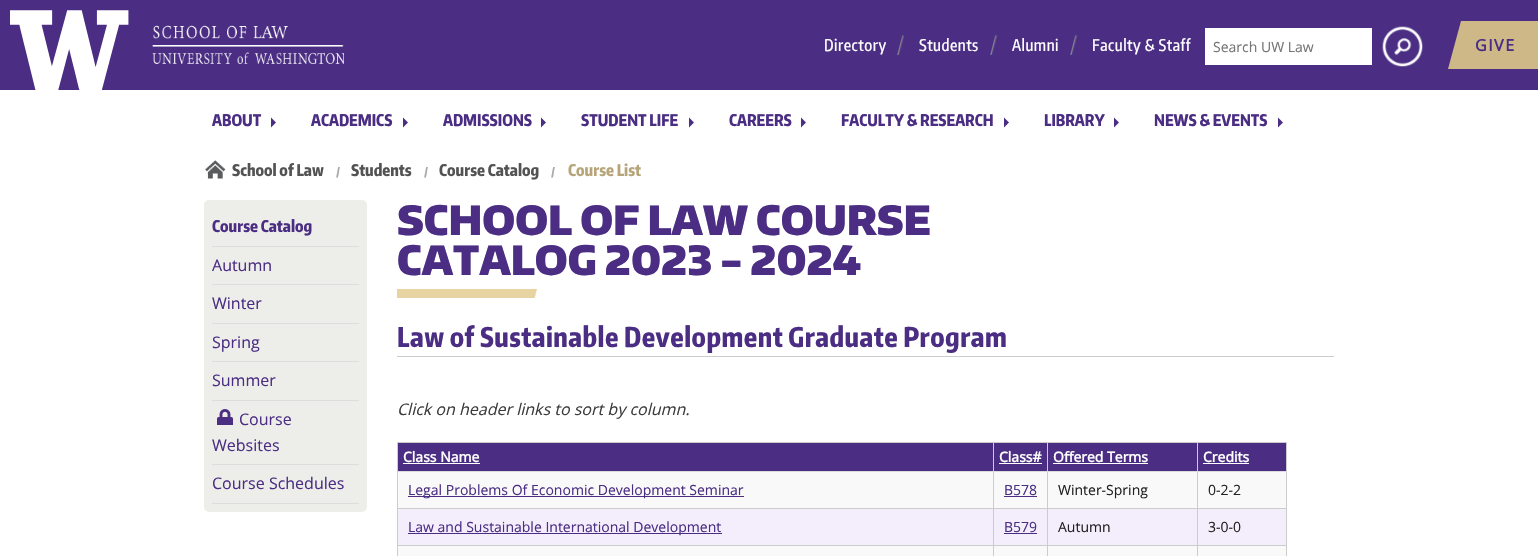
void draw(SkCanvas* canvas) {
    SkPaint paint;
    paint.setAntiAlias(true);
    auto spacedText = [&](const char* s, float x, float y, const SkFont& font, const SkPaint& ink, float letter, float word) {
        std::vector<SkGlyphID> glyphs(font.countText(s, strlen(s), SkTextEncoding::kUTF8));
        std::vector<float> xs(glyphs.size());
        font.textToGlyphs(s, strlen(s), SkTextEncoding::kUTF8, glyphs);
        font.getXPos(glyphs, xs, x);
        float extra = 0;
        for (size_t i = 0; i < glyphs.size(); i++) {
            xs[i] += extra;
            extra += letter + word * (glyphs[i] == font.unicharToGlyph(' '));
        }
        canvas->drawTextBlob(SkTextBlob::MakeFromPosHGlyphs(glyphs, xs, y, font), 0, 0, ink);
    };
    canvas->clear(0xFFFFFFFF);
    paint.setColor(0xFF4B2E83);
    canvas->drawRect(SkRect::MakeXYWH(0, 0, 1538, 90), paint);
    canvas->drawImageRect(SkImages::DeferredFromEncodedData(SkData::MakeFromFileName("img1.png")), SkRect::MakeXYWH(10, 10, 119, 80), SkSamplingOptions());
    canvas->drawImageRect(SkImages::DeferredFromEncodedData(SkData::MakeFromFileName("img2.png")), SkRect::MakeXYWH(152, 25, 192, 39), SkSamplingOptions());
    SkFont font1(fontMgr->matchFamilyStyle("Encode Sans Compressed", SkFontStyle(500, SkFontStyle::kNormal_Width, SkFontStyle::kUpright_Slant)), 16);
    font1.setSubpixel(true);
    paint.setColor(0xFFFFFFFF);
    spacedText("Directory", 824, 51, font1, paint, 0.5f, 0);
    canvas->drawImageRect(SkImages::DeferredFromEncodedData(SkData::MakeFromFileName("img3.png")), SkRect::MakeXYWH(897, 35, 8, 20), SkSamplingOptions());
    spacedText("Students", 919, 51, font1, paint, 0.5f, 0);
    canvas->drawImageRect(SkImages::DeferredFromEncodedData(SkData::MakeFromFileName("img3.png")), SkRect::MakeXYWH(990, 35, 8, 20), SkSamplingOptions());
    spacedText("Alumni", 1012, 51, font1, paint, 0.5f, 0);
    canvas->drawImageRect(SkImages::DeferredFromEncodedData(SkData::MakeFromFileName("img3.png")), SkRect::MakeXYWH(1070, 35, 8, 20), SkSamplingOptions());
    spacedText("Faculty & Staff", 1092, 51, font1, paint, 0.5f, 0);
    canvas->drawRect(SkRect::MakeXYWH(1205, 28, 167, 37), paint);
    SkFont font2(fontMgr->matchFamilyStyle("Open Sans", SkFontStyle::Normal()), 14);
    font2.setSubpixel(true);
    paint.setColor(0xFF757575);
    canvas->drawString("Search UW Law", 1213, 52, font2, paint);
    canvas->drawImageRect(SkImages::DeferredFromEncodedData(SkData::MakeFromFileName("img4.png")), SkRect::MakeXYWH(1382, 26, 41, 41), SkSamplingOptions());
    paint.setColor(0xFFCEB888);
    canvas->drawRect(SkRect::MakeXYWH(1466, 21, 72, 48), paint);
    SkFont font3(fontMgr->matchFamilyStyle("Open Sans", SkFontStyle::Bold()), 16);
    font3.setSubpixel(true);
    paint.setColor(0xFF4B2E83);
    spacedText("GIVE", 1475, 51, font3, paint, 1.5f, 0);
    paint.setColor(0xFFCEB888);
    canvas->drawPath(SkPathBuilder().moveTo(1461, 21).lineTo(1479, 21).lineTo(1466, 69).lineTo(1448, 69).close().detach(), paint);
    SkFont font4(fontMgr->matchFamilyStyle("Encode Sans Compressed", SkFontStyle(800, SkFontStyle::kNormal_Width, SkFontStyle::kUpright_Slant)), 16);
    font4.setSubpixel(true);
    paint.setColor(0xFF4B2E83);
    canvas->drawString("ABOUT", 212, 126, font4, paint);
    canvas->drawPath(SkPathBuilder().moveTo(271, 127.5f).lineTo(271, 117.5f).lineTo(276, 122.5f).close().detach(), paint);
    canvas->drawString("ACADEMICS", 311, 126, font4, paint);
    canvas->drawPath(SkPathBuilder().moveTo(403, 127.5f).lineTo(403, 117.5f).lineTo(408, 122.5f).close().detach(), paint);
    canvas->drawString("ADMISSIONS", 443, 126, font4, paint);
    canvas->drawPath(SkPathBuilder().moveTo(541, 127.5f).lineTo(541, 117.5f).lineTo(546, 122.5f).close().detach(), paint);
    canvas->drawString("STUDENT LIFE", 581, 126, font4, paint);
    canvas->drawPath(SkPathBuilder().moveTo(689, 127.5f).lineTo(689, 117.5f).lineTo(694, 122.5f).close().detach(), paint);
    canvas->drawString("CAREERS", 729, 126, font4, paint);
    canvas->drawPath(SkPathBuilder().moveTo(801, 127.5f).lineTo(801, 117.5f).lineTo(806, 122.5f).close().detach(), paint);
    canvas->drawString("FACULTY & RESEARCH", 841, 126, font4, paint);
    canvas->drawPath(SkPathBuilder().moveTo(1004, 127.5f).lineTo(1004, 117.5f).lineTo(1009, 122.5f).close().detach(), paint);
    canvas->drawString("LIBRARY", 1044, 126, font4, paint);
    canvas->drawPath(SkPathBuilder().moveTo(1114, 127.5f).lineTo(1114, 117.5f).lineTo(1119, 122.5f).close().detach(), paint);
    canvas->drawString("NEWS & EVENTS", 1154, 126, font4, paint);
    canvas->drawPath(SkPathBuilder().moveTo(1278, 127.5f).lineTo(1278, 117.5f).lineTo(1283, 122.5f).close().detach(), paint);
    canvas->drawImageRect(SkImages::DeferredFromEncodedData(SkData::MakeFromFileName("img5.png")), SkRect::MakeXYWH(205, 160, 21, 19), SkSamplingOptions());
    paint.setColor(0xFF535353);
    canvas->drawString("School of Law", 232, 176, font4, paint);
    SkFont font5(fontMgr->matchFamilyStyle("Encode Sans Compressed", SkFontStyle(800, SkFontStyle::kNormal_Width, SkFontStyle::kUpright_Slant)), 12);
    font5.setSubpixel(true);
    paint.setColor(0xFFAAAAAA);
    canvas->drawString("/", 336, 176, font5, paint);
    paint.setColor(0xFF535353);
    canvas->drawString("Students", 351, 176, font4, paint);
    paint.setColor(0xFFAAAAAA);
    canvas->drawString("/", 424, 176, font5, paint);
    paint.setColor(0xFF535353);
    canvas->drawString("Course Catalog", 439, 176, font4, paint);
    paint.setColor(0xFFAAAAAA);
    canvas->drawString("/", 551, 176, font5, paint);
    paint.setColor(0xFFB7A57A);
    canvas->drawString("Course List", 568, 176, font4, paint);
    paint.setColor(0xFFEDEDEA);
    canvas->drawRoundRect(SkRect::MakeXYWH(204, 200, 163, 312), 5, 5, paint);
    paint.setColor(0xFFDDDDDD);
    canvas->drawRect(SkRect::MakeXYWH(212, 246, 147, 1), paint);
    paint.setColor(0xFF4B2E83);
    canvas->drawString("Course Catalog", 212, 232, font4, paint);
    paint.setColor(0xFFDDDDDD);
    canvas->drawRect(SkRect::MakeXYWH(212, 284, 147, 1), paint);
    SkFont font6(fontMgr->matchFamilyStyle("Open Sans", SkFontStyle::Normal()), 16);
    font6.setSubpixel(true);
    paint.setColor(0xFF4B2E83);
    canvas->drawString("Autumn", 212, 271, font6, paint);
    paint.setColor(0xFFDDDDDD);
    canvas->drawRect(SkRect::MakeXYWH(212, 323, 147, 1), paint);
    paint.setColor(0xFF4B2E83);
    canvas->drawString("Winter", 212, 309, font6, paint);
    paint.setColor(0xFFDDDDDD);
    canvas->drawRect(SkRect::MakeXYWH(212, 361, 147, 1), paint);
    paint.setColor(0xFF4B2E83);
    canvas->drawString("Spring", 212, 348, font6, paint);
    paint.setColor(0xFFDDDDDD);
    canvas->drawRect(SkRect::MakeXYWH(212, 400, 147, 1), paint);
    paint.setColor(0xFF4B2E83);
    canvas->drawString("Summer", 212, 386, font6, paint);
    paint.setColor(0xFFDDDDDD);
    canvas->drawRect(SkRect::MakeXYWH(212, 464, 147, 1), paint);
    canvas->drawImageRect(SkImages::DeferredFromEncodedData(SkData::MakeFromFileName("img6.png")), SkRect::MakeXYWH(217, 409, 16, 16), SkSamplingOptions());
    paint.setColor(0xFF4B2E83);
    canvas->drawString("Course", 239, 425, font6, paint);
    canvas->drawString("Websites", 212, 451, font6, paint);
    paint.setColor(0xFFDDDDDD);
    canvas->drawRect(SkRect::MakeXYWH(212, 503, 147, 1), paint);
    paint.setColor(0xFF4B2E83);
    canvas->drawString("Course Schedules", 212, 489, font6, paint);
    canvas->drawImageRect(SkImages::DeferredFromEncodedData(SkData::MakeFromFileName("img7.png")), SkRect::MakeXYWH(397, 289, 140, 9), SkSamplingOptions());
    SkFont font7(fontMgr->matchFamilyStyle("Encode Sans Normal", SkFontStyle(900, SkFontStyle::kNormal_Width, SkFontStyle::kUpright_Slant)), 40);
    font7.setSubpixel(true);
    canvas->drawString("SCHOOL OF LAW COURSE", 397, 235, font7, paint);
    canvas->drawString("CATALOG 2023 - 2024", 397, 275, font7, paint);
    paint.setColor(0xFFCCCCCC);
    canvas->drawRect(SkRect::MakeXYWH(397, 356, 937, 1), paint);
    SkFont font8(fontMgr->matchFamilyStyle("Encode Sans Compressed", SkFontStyle(800, SkFontStyle::kNormal_Width, SkFontStyle::kUpright_Slant)), 27);
    font8.setSubpixel(true);
    paint.setColor(0xFF4B2E83);
    spacedText("Law of Sustainable Development Graduate Program", 397, 347, font8, paint, 0.5f, 0);
    SkFont font9(fontMgr->matchFamilyStyle("Open Sans", SkFontStyle::Italic()), 16);
    font9.setSubpixel(true);
    paint.setColor(0xFF3D3D3D);
    canvas->drawString("Click on header links to sort by column.", 397, 415, font9, paint);
    paint.setColor(0xFF4B2E83);
    canvas->drawRect(SkRect::MakeXYWH(398, 443, 595, 28), paint);
    paint.setColor(0xFFCCCCCC);
    canvas->drawRect(SkRect::MakeXYWH(1197, 442, 90, 1), paint);
    canvas->drawRect(SkRect::MakeXYWH(1286, 471, 1, 85), paint);
    canvas->drawRect(SkRect::MakeXYWH(1286, 442, 1, 30), paint);
    paint.setColor(0xFFF9F9F9);
    canvas->drawRect(SkRect::MakeXYWH(398, 472, 888, 36), paint);
    canvas->drawRect(SkRect::MakeXYWH(398, 546, 888, 10), paint);
    paint.setColor(0xFFCCCCCC);
    canvas->drawRect(SkRect::MakeXYWH(1197, 545, 1, 11), paint);
    paint.setColor(0xFFF3EDFC);
    canvas->drawRect(SkRect::MakeXYWH(398, 509, 888, 36), paint);
    paint.setColor(0xFFCCCCCC);
    canvas->drawRect(SkRect::MakeXYWH(1197, 545, 90, 1), paint);
    canvas->drawRect(SkRect::MakeXYWH(1197, 508, 1, 38), paint);
    canvas->drawRect(SkRect::MakeXYWH(1197, 508, 90, 1), paint);
    canvas->drawRect(SkRect::MakeXYWH(1197, 471, 1, 38), paint);
    paint.setColor(0xFFDDDDDD);
    canvas->drawRect(SkRect::MakeXYWH(1197, 471, 90, 1), paint);
    paint.setColor(0xFFCCCCCC);
    canvas->drawRect(SkRect::MakeXYWH(1197, 442, 1, 30), paint);
    canvas->drawRect(SkRect::MakeXYWH(1047, 442, 151, 1), paint);
    canvas->drawRect(SkRect::MakeXYWH(1047, 545, 1, 11), paint);
    canvas->drawRect(SkRect::MakeXYWH(1047, 545, 151, 1), paint);
    canvas->drawRect(SkRect::MakeXYWH(1047, 508, 1, 38), paint);
    canvas->drawRect(SkRect::MakeXYWH(1047, 508, 151, 1), paint);
    canvas->drawRect(SkRect::MakeXYWH(1047, 471, 1, 38), paint);
    paint.setColor(0xFFDDDDDD);
    canvas->drawRect(SkRect::MakeXYWH(1047, 471, 151, 1), paint);
    paint.setColor(0xFFCCCCCC);
    canvas->drawRect(SkRect::MakeXYWH(1047, 442, 1, 30), paint);
    canvas->drawRect(SkRect::MakeXYWH(993, 442, 55, 1), paint);
    canvas->drawRect(SkRect::MakeXYWH(993, 545, 1, 11), paint);
    canvas->drawRect(SkRect::MakeXYWH(993, 545, 55, 1), paint);
    canvas->drawRect(SkRect::MakeXYWH(993, 508, 1, 38), paint);
    canvas->drawRect(SkRect::MakeXYWH(993, 508, 55, 1), paint);
    canvas->drawRect(SkRect::MakeXYWH(993, 471, 1, 38), paint);
    paint.setColor(0xFFDDDDDD);
    canvas->drawRect(SkRect::MakeXYWH(993, 471, 55, 1), paint);
    paint.setColor(0xFFCCCCCC);
    canvas->drawRect(SkRect::MakeXYWH(993, 442, 1, 30), paint);
    canvas->drawRect(SkRect::MakeXYWH(397, 442, 597, 1), paint);
    canvas->drawRect(SkRect::MakeXYWH(397, 545, 1, 11), paint);
    canvas->drawRect(SkRect::MakeXYWH(397, 545, 597, 1), paint);
    canvas->drawRect(SkRect::MakeXYWH(397, 508, 1, 38), paint);
    canvas->drawRect(SkRect::MakeXYWH(397, 508, 597, 1), paint);
    canvas->drawRect(SkRect::MakeXYWH(397, 471, 1, 38), paint);
    paint.setColor(0xFFDDDDDD);
    canvas->drawRect(SkRect::MakeXYWH(397, 471, 597, 1), paint);
    paint.setColor(0xFFCCCCCC);
    canvas->drawRect(SkRect::MakeXYWH(397, 442, 1, 30), paint);
    SkFont font10(fontMgr->matchFamilyStyle("Open Sans", SkFontStyle::Bold()), 14);
    font10.setSubpixel(true);
    paint.setColor(0xFFFFFFFF);
    canvas->drawString("Class Name", 403, 462, font10, paint);
    canvas->drawRect(SkRect::MakeXYWH(403, 463, 77, 1), paint);
    paint.setColor(0xFF4B2E83);
    canvas->drawRect(SkRect::MakeXYWH(994, 443, 53, 28), paint);
    paint.setColor(0xFFFFFFFF);
    canvas->drawString("Class#", 999, 462, font10, paint);
    canvas->drawRect(SkRect::MakeXYWH(999, 463, 43, 1), paint);
    paint.setColor(0xFF4B2E83);
    canvas->drawRect(SkRect::MakeXYWH(1048, 443, 149, 28), paint);
    paint.setColor(0xFFFFFFFF);
    canvas->drawString("Offered Terms", 1053, 462, font10, paint);
    canvas->drawRect(SkRect::MakeXYWH(1053, 463, 95, 1), paint);
    paint.setColor(0xFF4B2E83);
    canvas->drawRect(SkRect::MakeXYWH(1198, 443, 88, 28), paint);
    paint.setColor(0xFFFFFFFF);
    canvas->drawString("Credits", 1203, 462, font10, paint);
    canvas->drawRect(SkRect::MakeXYWH(1203, 463, 46, 1), paint);
    paint.setColor(0xFF4B2E83);
    canvas->drawRect(SkRect::MakeXYWH(408, 496, 336, 1), paint);
    canvas->drawString("Legal Problems Of Economic Development Seminar", 408, 495, font2, paint);
    canvas->drawString("B578", 1004, 495, font2, paint);
    canvas->drawRect(SkRect::MakeXYWH(1004, 496, 33, 1), paint);
    paint.setColor(0xFF222222);
    canvas->drawString("Winter-Spring", 1058, 495, font2, paint);
    canvas->drawString("0-2-2", 1208, 495, font2, paint);
    paint.setColor(0xFF4B2E83);
    canvas->drawRect(SkRect::MakeXYWH(408, 533, 314, 1), paint);
    canvas->drawString("Law and Sustainable International Development", 408, 532, font2, paint);
    canvas->drawString("B579", 1004, 532, font2, paint);
    canvas->drawRect(SkRect::MakeXYWH(1004, 533, 33, 1), paint);
    paint.setColor(0xFF222222);
    canvas->drawString("Autumn", 1058, 532, font2, paint);
    canvas->drawString("3-0-0", 1208, 532, font2, paint);
}
